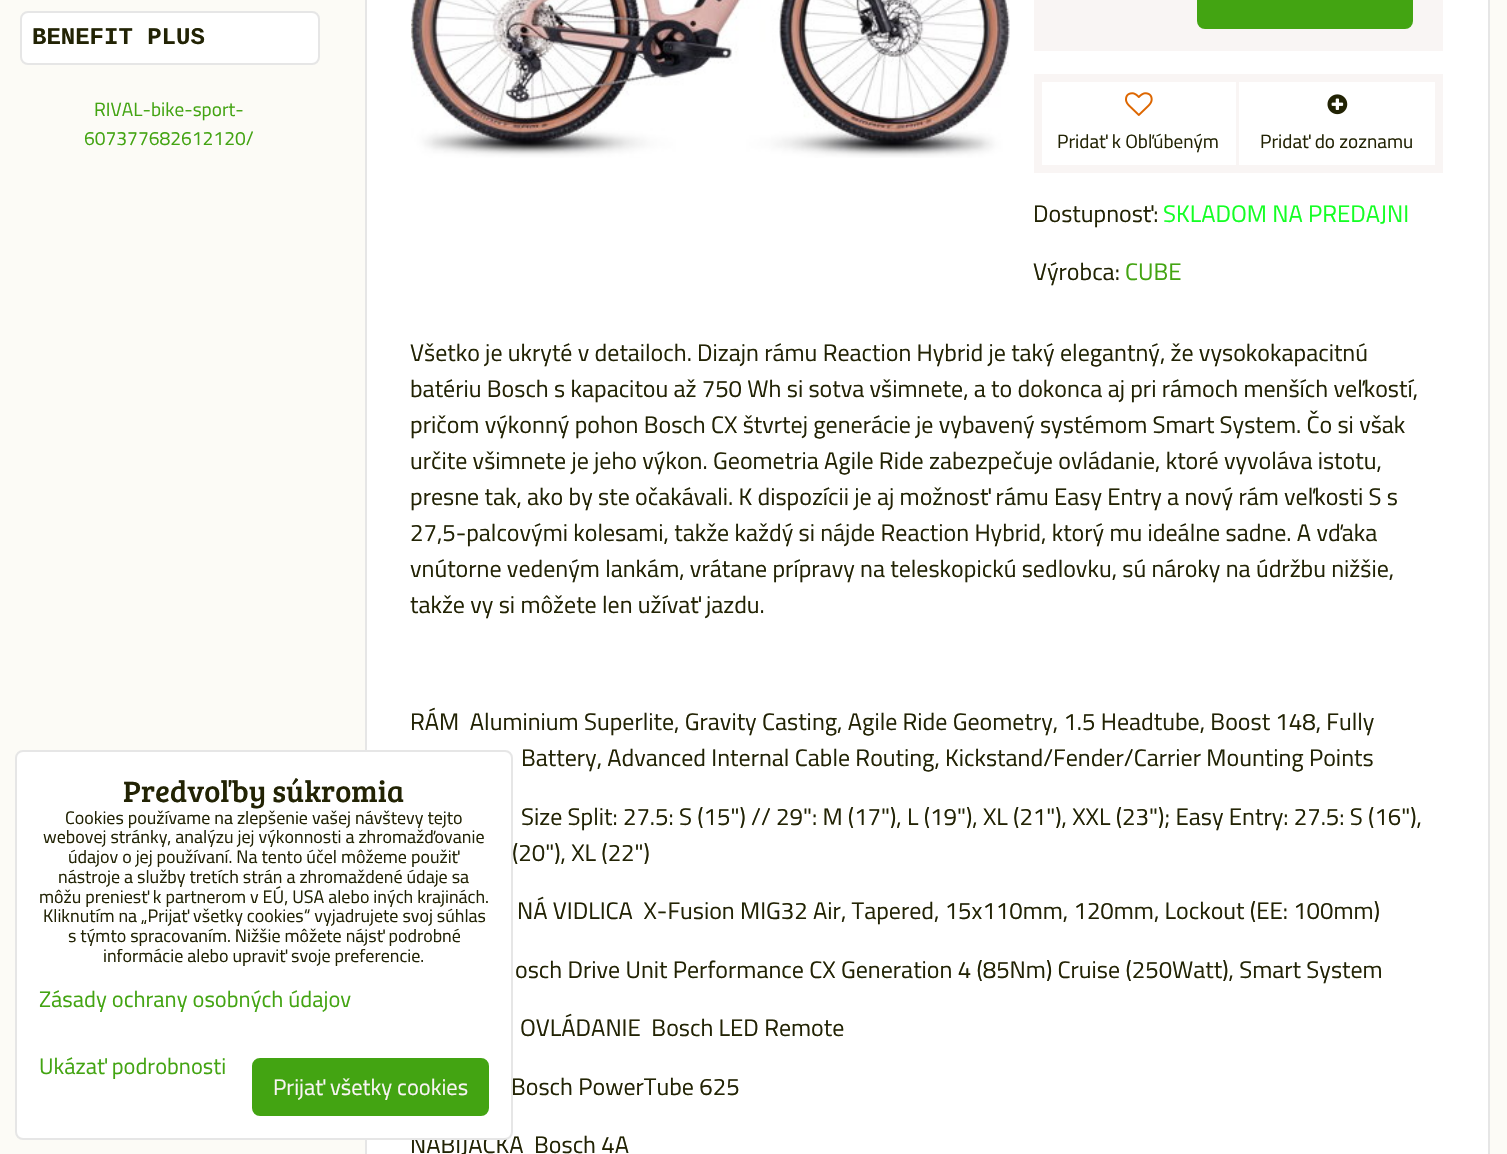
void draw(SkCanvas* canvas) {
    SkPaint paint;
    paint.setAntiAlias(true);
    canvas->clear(0xFFFCFBF6);
    paint.setColor(0xFFFFFFFF);
    canvas->drawRoundRect(SkRect::MakeXYWH(21, 12, 298, 52), 7, 7, paint);
    paint.setStyle(SkPaint::kStroke_Style);
    paint.setStrokeWidth(2);
    paint.setColor(0xFFE6E6E6);
    canvas->drawRoundRect(SkRect::MakeXYWH(21, 12, 298, 52), 7, 7, paint);
    SkFont font1(fontMgr->matchFamilyStyle("Liberation Mono", SkFontStyle::Bold()), 24);
    font1.setSubpixel(true);
    paint.setStyle(SkPaint::kFill_Style);
    paint.setColor(0xFF222304);
    canvas->drawString("BENEFIT PLUS", 32, 44, font1, paint);
    SkFont font2(fontMgr->matchFamilyStyle("Titillium Web", SkFontStyle::Normal()), 19.25f);
    font2.setSubpixel(true);
    paint.setColor(0xFF43A412);
    canvas->drawString("RIVAL-bike-sport-", 94, 116, font2, paint);
    canvas->drawString("607377682612120/", 84, 145, font2, paint);
    paint.setColor(0xFFFFFFFF);
    canvas->drawRect(SkRect::MakeXYWH(366, -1, 1123, 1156), paint);
    paint.setStyle(SkPaint::kStroke_Style);
    paint.setColor(0xFFE6E6E6);
    canvas->drawRect(SkRect::MakeXYWH(366, -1, 1123, 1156), paint);
    canvas->drawImageRect(SkImages::DeferredFromEncodedData(SkData::MakeFromFileName("img1.png")), SkRect::MakeXYWH(411, 0, 599, 158), SkSamplingOptions());
    paint.setStyle(SkPaint::kFill_Style);
    paint.setColor(0xFFF9F5F4);
    canvas->drawRect(SkRect::MakeXYWH(1034, 0, 409, 51), paint);
    paint.setColor(0xFF43A412);
    canvas->drawRoundRect(SkRect::MakeXYWH(1197, -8, 216, 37), 8, 8, paint);
    paint.setStyle(SkPaint::kStroke_Style);
    paint.setStrokeWidth(8);
    paint.setColor(0xFFF9F5F4);
    canvas->drawRect(SkRect::MakeXYWH(1038, 78, 401, 91), paint);
    canvas->drawImageRect(SkImages::DeferredFromEncodedData(SkData::MakeFromFileName("img2.png")), SkRect::MakeXYWH(1125, 92, 28, 24), SkSamplingOptions());
    paint.setStyle(SkPaint::kFill_Style);
    paint.setColor(0xFF222304);
    canvas->drawString("Pridať k Obľúbeným", 1057, 148, font2, paint);
    paint.setColor(0xFFF9F5F4);
    canvas->drawRect(SkRect::MakeXYWH(1236, 81, 3, 84), paint);
    canvas->drawImageRect(SkImages::DeferredFromEncodedData(SkData::MakeFromFileName("img3.png")), SkRect::MakeXYWH(1327, 94, 21, 21), SkSamplingOptions());
    paint.setColor(0xFF222304);
    canvas->drawString("Pridať do zoznamu", 1260, 148, font2, paint);
    SkFont font3(fontMgr->matchFamilyStyle("Titillium Web", SkFontStyle::Normal()), 24);
    font3.setSubpixel(true);
    canvas->drawString("Dostupnosť:", 1033, 222, font3, paint);
    paint.setColor(0xFF14FF24);
    canvas->drawString("SKLADOM NA PREDAJNI", 1163, 222, font3, paint);
    paint.setColor(0xFF222304);
    canvas->drawString("Výrobca:", 1033, 280, font3, paint);
    paint.setColor(0xFF43A412);
    canvas->drawString("CUBE", 1125, 280, font3, paint);
    paint.setColor(0xFF222304);
    canvas->drawString("Všetko je ukryté v detailoch. Dizajn rámu Reaction Hybrid je taký elegantný, že vysokokapacitnú", 410, 361, font3, paint);
    canvas->drawString("batériu Bosch s kapacitou až 750 Wh si sotva všimnete, a to dokonca aj pri rámoch menších veľkostí,", 410, 397, font3, paint);
    canvas->drawString("pričom výkonný pohon Bosch CX štvrtej generácie je vybavený systémom Smart System. Čo si však", 410, 433, font3, paint);
    canvas->drawString("určite všimnete je jeho výkon. Geometria Agile Ride zabezpečuje ovládanie, ktoré vyvoláva istotu,", 410, 469, font3, paint);
    canvas->drawString("presne tak, ako by ste očakávali. K dispozícii je aj možnosť rámu Easy Entry a nový rám veľkosti S s", 410, 505, font3, paint);
    canvas->drawString("27,5-palcovými kolesami, takže každý si nájde Reaction Hybrid, ktorý mu ideálne sadne. A vďaka", 410, 541, font3, paint);
    canvas->drawString("vnútorne vedeným lankám, vrátane prípravy na teleskopickú sedlovku, sú nároky na údržbu nižšie,", 410, 577, font3, paint);
    canvas->drawString("takže vy si môžete len užívať jazdu.", 410, 613, font3, paint);
    canvas->drawString("RÁM  Aluminium Superlite, Gravity Casting, Agile Ride Geometry, 1.5 Headtube, Boost 148, Fully", 410, 730, font3, paint);
    canvas->drawString("Battery, Advanced Internal Cable Routing, Kickstand/Fender/Carrier Mounting Points", 521, 766, font3, paint);
    canvas->drawString("Size Split: 27.5: S (15\") // 29\": M (17\"), L (19\"), XL (21\"), XXL (23\"); Easy Entry: 27.5: S (16\"),", 521, 825, font3, paint);
    canvas->drawString("(20\"), XL (22\")", 512, 861, font3, paint);
    canvas->drawString("NÁ VIDLICA  X-Fusion MIG32 Air, Tapered, 15x110mm, 120mm, Lockout (EE: 100mm)", 517, 919, font3, paint);
    canvas->drawString("osch Drive Unit Performance CX Generation 4 (85Nm) Cruise (250Watt), Smart System", 515, 978, font3, paint);
    canvas->drawString("OVLÁDANIE  Bosch LED Remote", 520, 1036, font3, paint);
    canvas->drawString("Bosch PowerTube 625", 511, 1095, font3, paint);
    canvas->drawString("NABÍJAČKA  Bosch 4A", 410, 1153, font3, paint);
    paint.setColor(0xFFFFFFFF);
    canvas->drawRoundRect(SkRect::MakeXYWH(16, 751, 496, 388), 7, 7, paint);
    paint.setStyle(SkPaint::kStroke_Style);
    paint.setStrokeWidth(2);
    paint.setColor(0xFFE6E6E6);
    canvas->drawRoundRect(SkRect::MakeXYWH(16, 751, 496, 388), 7, 7, paint);
    SkFont font4(fontMgr->matchFamilyStyle("Bree Serif", SkFontStyle::Normal()), 30.5f);
    font4.setSubpixel(true);
    paint.setStyle(SkPaint::kFill_Style);
    paint.setColor(0xFF222304);
    canvas->drawString("Predvoľby súkromia", 123, 802, font4, paint);
    SkFont font5(fontMgr->matchFamilyStyle("Titillium Web", SkFontStyle::Normal()), 18);
    font5.setSubpixel(true);
    canvas->drawString("Cookies používame na zlepšenie vašej návštevy tejto", 65, 824, font5, paint);
    canvas->drawString("webovej stránky, analýzu jej výkonnosti a zhromažďovanie", 43, 843, font5, paint);
    canvas->drawString("údajov o jej používaní. Na tento účel môžeme použiť", 68, 863, font5, paint);
    canvas->drawString("nástroje a služby tretích strán a zhromaždené údaje sa", 58, 883, font5, paint);
    canvas->drawString("môžu preniesť k partnerom v EÚ, USA alebo iných krajinách.", 39, 903, font5, paint);
    canvas->drawString("Kliknutím na „Prijať všetky cookies“ vyjadrujete svoj súhlas", 43, 922, font5, paint);
    canvas->drawString("s týmto spracovaním. Nižšie môžete nájsť podrobné", 68, 942, font5, paint);
    canvas->drawString("informácie alebo upraviť svoje preferencie.", 103, 962, font5, paint);
    SkFont font6(fontMgr->matchFamilyStyle("Titillium Web", SkFontStyle::Normal()), 22.5f);
    font6.setSubpixel(true);
    paint.setColor(0xFF43A412);
    canvas->drawString("Zásady ochrany osobných údajov", 39, 1007, font6, paint);
    canvas->drawString("Ukázať podrobnosti", 39, 1074, font6, paint);
    canvas->drawRoundRect(SkRect::MakeXYWH(253, 1059, 235, 56), 7, 7, paint);
    paint.setStyle(SkPaint::kStroke_Style);
    canvas->drawRoundRect(SkRect::MakeXYWH(253, 1059, 235, 56), 7, 7, paint);
    paint.setStyle(SkPaint::kFill_Style);
    paint.setColor(0xFFF9F5F4);
    canvas->drawString("Prijať všetky cookies", 273, 1095, font6, paint);
}
